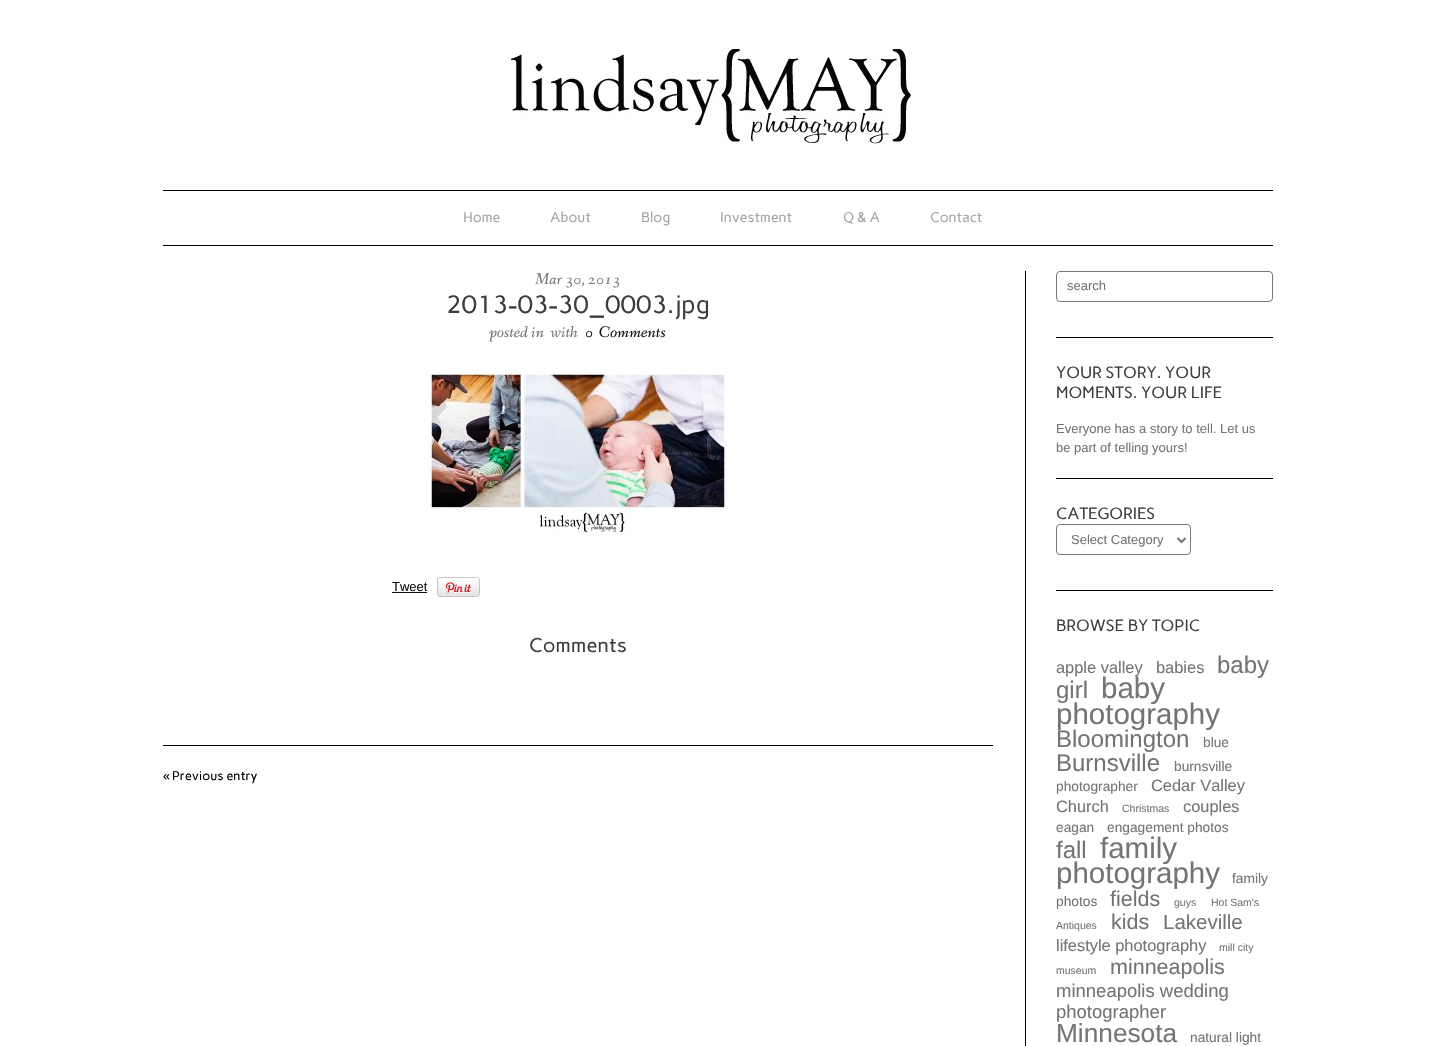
void draw(SkCanvas* canvas) {
    SkPaint paint;
    paint.setAntiAlias(true);
    canvas->clear(0xFFFFFFFF);
    canvas->drawImageRect(SkImages::DeferredFromEncodedData(SkData::MakeFromFileName("img1.png")), SkRect::MakeXYWH(511, 45, 402, 99), SkSamplingOptions());
    paint.setColor(0xFF000000);
    canvas->drawRect(SkRect::MakeXYWH(163, 190, 1110, 1), paint);
    canvas->drawRect(SkRect::MakeXYWH(163, 245, 1110, 1), paint);
    SkFont font1(fontMgr->matchFamilyStyle("Carme", SkFontStyle::Normal()), 14);
    font1.setSubpixel(true);
    paint.setColor(0xFFA4A4A4);
    canvas->drawString("Home", 463, 222, font1, paint);
    canvas->drawString("About", 550, 222, font1, paint);
    canvas->drawString("Blog", 641, 222, font1, paint);
    canvas->drawString("Investment", 720, 222, font1, paint);
    canvas->drawString("Q & A", 843, 222, font1, paint);
    canvas->drawString("Contact", 930, 222, font1, paint);
    SkFont font2(fontMgr->matchFamilyStyle("Fanwood Text", SkFontStyle::Italic()), 16.25f);
    font2.setSubpixel(true);
    paint.setColor(0xFF747474);
    canvas->drawString("Mar 30, 2013", 535, 284, font2, paint);
    SkFont font3(fontMgr->matchFamilyStyle("Carme", SkFontStyle::Normal()), 25);
    font3.setSubpixel(true);
    paint.setColor(0xFF3D3D3D);
    canvas->drawString("2013-03-30_0003.jpg", 446, 313, font3, paint);
    paint.setColor(0xFF747474);
    canvas->drawString("posted in", 489, 337, font2, paint);
    canvas->drawString("with", 550, 337, font2, paint);
    paint.setColor(0xFF111111);
    canvas->drawString("0", 585, 337, font2, paint);
    canvas->drawString("Comments", 599, 337, font2, paint);
    canvas->drawImageRect(SkImages::DeferredFromEncodedData(SkData::MakeFromFileName("img2.png")), SkRect::MakeXYWH(428, 371, 300, 166), SkSamplingOptions());
    SkFont font4(fontMgr->matchFamilyStyle("Liberation Sans", SkFontStyle::Normal()), 13);
    font4.setSubpixel(true);
    canvas->drawString("Tweet", 392, 591, font4, paint);
    canvas->drawRect(SkRect::MakeXYWH(392, 592, 35, 1), paint);
    canvas->drawImageRect(SkImages::DeferredFromEncodedData(SkData::MakeFromFileName("img3.png")), SkRect::MakeXYWH(437, 577, 43, 20), SkSamplingOptions());
    SkFont font5(fontMgr->matchFamilyStyle("Carme", SkFontStyle::Normal()), 20);
    font5.setSubpixel(true);
    paint.setColor(0xFF3D3D3D);
    canvas->drawString("Comments", 529, 652, font5, paint);
    paint.setColor(0xFF000000);
    canvas->drawRect(SkRect::MakeXYWH(163, 745, 830, 1), paint);
    SkFont font6(fontMgr->matchFamilyStyle("Liberation Sans", SkFontStyle::Normal()), 12.5f);
    font6.setSubpixel(true);
    canvas->drawString("«", 163, 780, font6, paint);
    SkFont font7(fontMgr->matchFamilyStyle("Carme", SkFontStyle::Normal()), 12.5f);
    font7.setSubpixel(true);
    canvas->drawString("Previous entry", 172, 780, font7, paint);
    canvas->drawRect(SkRect::MakeXYWH(1025, 271, 1, 775), paint);
    canvas->drawRect(SkRect::MakeXYWH(1056, 337, 217, 1), paint);
    paint.setStyle(SkPaint::kStroke_Style);
    paint.setStrokeWidth(1);
    paint.setColor(0xFF777777);
    canvas->drawRoundRect(SkRect::MakeXYWH(1056.5f, 271.5f, 216, 30), 3.5f, 3.5f, paint);
    paint.setStyle(SkPaint::kFill_Style);
    paint.setColor(0xFF747474);
    canvas->drawString("search", 1067, 290, font4, paint);
    paint.setColor(0xFF000000);
    canvas->drawRect(SkRect::MakeXYWH(1056, 478, 217, 1), paint);
    SkFont font8(fontMgr->matchFamilyStyle("Carme", SkFontStyle::Normal()), 16.25f);
    font8.setSubpixel(true);
    paint.setColor(0xFF3D3D3D);
    canvas->drawString("YOUR STORY. YOUR", 1056, 378, font8, paint);
    canvas->drawString("MOMENTS. YOUR LIFE", 1056, 398, font8, paint);
    paint.setColor(0xFF747474);
    canvas->drawString("Everyone has a story to tell. Let us", 1056, 433, font4, paint);
    canvas->drawString("be part of telling yours!", 1056, 452, font4, paint);
    paint.setColor(0xFF000000);
    canvas->drawRect(SkRect::MakeXYWH(1056, 590, 217, 1), paint);
    paint.setColor(0xFF3D3D3D);
    canvas->drawString("CATEGORIES", 1056, 519, font8, paint);
    paint.setStyle(SkPaint::kStroke_Style);
    paint.setColor(0xFF777777);
    canvas->drawRoundRect(SkRect::MakeXYWH(1056.5f, 524.5f, 134, 30), 3.5f, 3.5f, paint);
    paint.setStrokeWidth(2);
    paint.setColor(0xFF747474);
    canvas->drawPath(SkPathBuilder().moveTo(1177.5f, 538).lineTo(1181.5f, 542).lineTo(1185.5f, 538).detach(), paint);
    paint.setStyle(SkPaint::kFill_Style);
    canvas->drawString("Select Category", 1071, 544, font4, paint);
    paint.setColor(0xFF3D3D3D);
    canvas->drawString("BROWSE BY TOPIC", 1056, 631, font8, paint);
    SkFont font9(fontMgr->matchFamilyStyle("Liberation Sans", SkFontStyle::Normal()), 16.4f);
    font9.setSubpixel(true);
    paint.setColor(0xFF747474);
    canvas->drawString("apple valley", 1056, 673, font9, paint);
    canvas->drawString("babies", 1156, 673, font9, paint);
    SkFont font10(fontMgr->matchFamilyStyle("Liberation Sans", SkFontStyle::Normal()), 24);
    font10.setSubpixel(true);
    canvas->drawString("baby", 1217, 673, font10, paint);
    canvas->drawString("girl", 1056, 698, font10, paint);
    SkFont font11(fontMgr->matchFamilyStyle("Liberation Sans", SkFontStyle::Normal()), 29.5f);
    font11.setSubpixel(true);
    canvas->drawString("baby", 1101, 698, font11, paint);
    canvas->drawString("photography", 1056, 724, font11, paint);
    canvas->drawString("Bloomington", 1056, 747, font10, paint);
    SkFont font12(fontMgr->matchFamilyStyle("Liberation Sans", SkFontStyle::Normal()), 13.75f);
    font12.setSubpixel(true);
    canvas->drawString("blue", 1203, 747, font12, paint);
    canvas->drawString("Burnsville", 1056, 771, font10, paint);
    canvas->drawString("burnsville", 1174, 771, font12, paint);
    canvas->drawString("photographer", 1056, 791, font12, paint);
    canvas->drawString("Cedar Valley", 1151, 791, font9, paint);
    canvas->drawString("Church", 1056, 812, font9, paint);
    SkFont font13(fontMgr->matchFamilyStyle("Liberation Sans", SkFontStyle::Normal()), 10.5f);
    font13.setSubpixel(true);
    canvas->drawString("Christmas", 1122, 812, font13, paint);
    canvas->drawString("couples", 1183, 812, font9, paint);
    canvas->drawString("eagan", 1056, 832, font12, paint);
    canvas->drawString("engagement photos", 1107, 832, font12, paint);
    canvas->drawString("fall", 1056, 858, font10, paint);
    canvas->drawString("family", 1100, 858, font11, paint);
    canvas->drawString("photography", 1056, 883, font11, paint);
    canvas->drawString("family", 1232, 883, font12, paint);
    canvas->drawString("photos", 1056, 906, font12, paint);
    SkFont font14(fontMgr->matchFamilyStyle("Liberation Sans", SkFontStyle::Normal()), 21.5f);
    font14.setSubpixel(true);
    canvas->drawString("fields", 1110, 906, font14, paint);
    canvas->drawString("guys", 1174, 906, font13, paint);
    canvas->drawString("Hot Sam's", 1211, 906, font13, paint);
    canvas->drawString("Antiques", 1056, 929, font13, paint);
    canvas->drawString("kids", 1111, 929, font14, paint);
    SkFont font15(fontMgr->matchFamilyStyle("Liberation Sans", SkFontStyle::Normal()), 20.5f);
    font15.setSubpixel(true);
    canvas->drawString("Lakeville", 1163, 929, font15, paint);
    canvas->drawString("lifestyle photography", 1056, 951, font9, paint);
    canvas->drawString("mill city", 1219, 951, font13, paint);
    canvas->drawString("museum", 1056, 974, font13, paint);
    canvas->drawString("minneapolis", 1110, 974, font14, paint);
    SkFont font16(fontMgr->matchFamilyStyle("Liberation Sans", SkFontStyle::Normal()), 18.5f);
    font16.setSubpixel(true);
    canvas->drawString("minneapolis wedding", 1056, 997, font16, paint);
    canvas->drawString("photographer", 1056, 1018, font16, paint);
    SkFont font17(fontMgr->matchFamilyStyle("Liberation Sans", SkFontStyle::Normal()), 26.25f);
    font17.setSubpixel(true);
    canvas->drawString("Minnesota", 1056, 1042, font17, paint);
    canvas->drawString("natural light", 1190, 1042, font12, paint);
}
